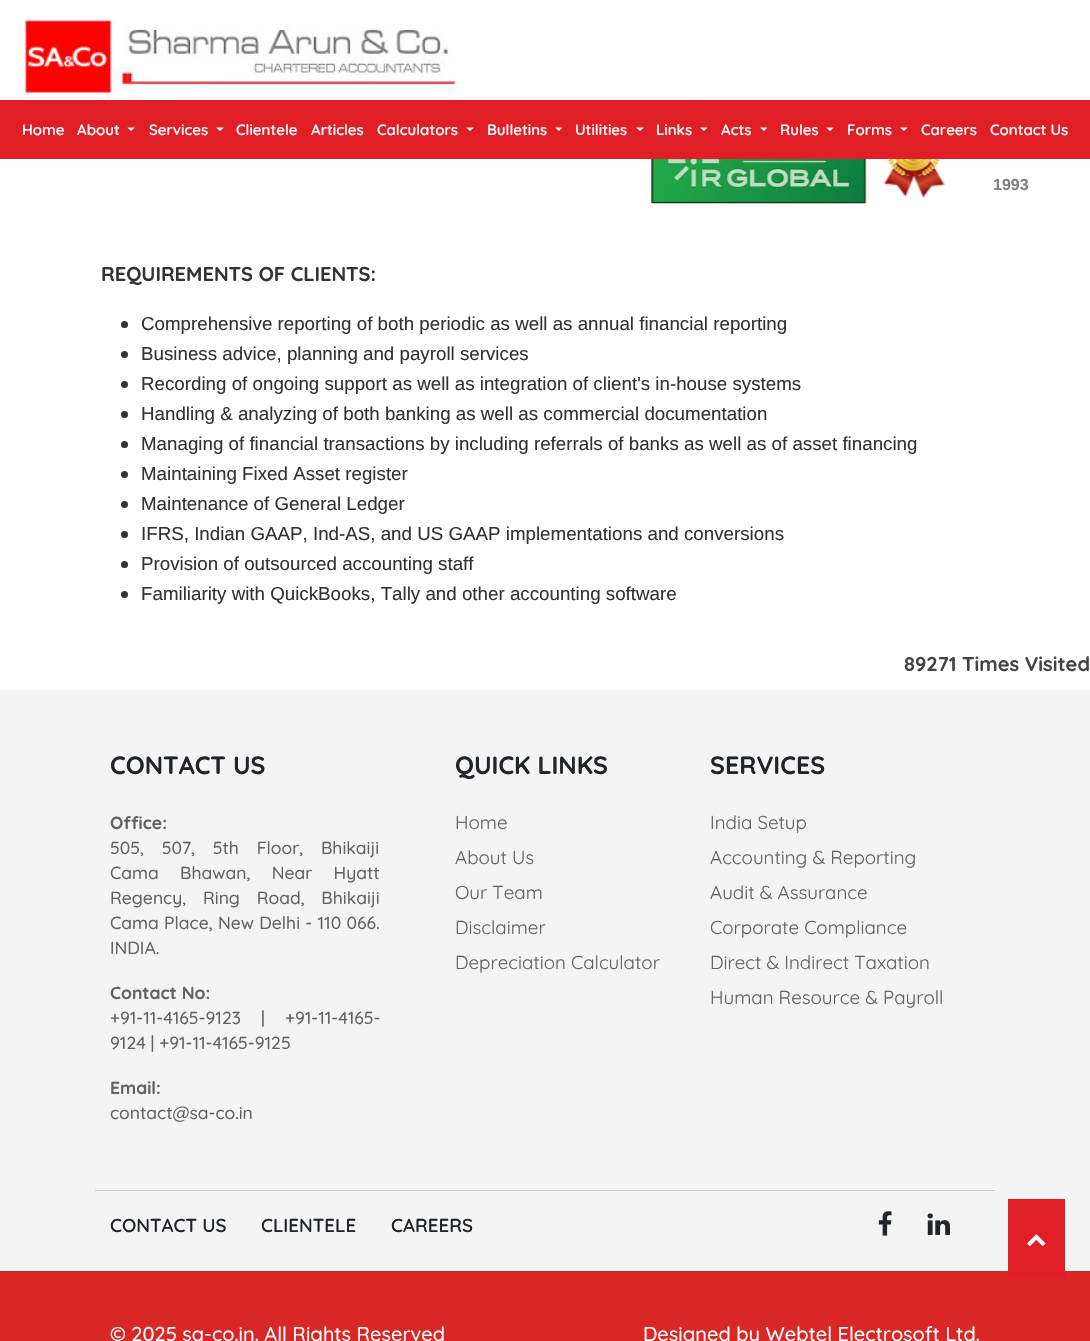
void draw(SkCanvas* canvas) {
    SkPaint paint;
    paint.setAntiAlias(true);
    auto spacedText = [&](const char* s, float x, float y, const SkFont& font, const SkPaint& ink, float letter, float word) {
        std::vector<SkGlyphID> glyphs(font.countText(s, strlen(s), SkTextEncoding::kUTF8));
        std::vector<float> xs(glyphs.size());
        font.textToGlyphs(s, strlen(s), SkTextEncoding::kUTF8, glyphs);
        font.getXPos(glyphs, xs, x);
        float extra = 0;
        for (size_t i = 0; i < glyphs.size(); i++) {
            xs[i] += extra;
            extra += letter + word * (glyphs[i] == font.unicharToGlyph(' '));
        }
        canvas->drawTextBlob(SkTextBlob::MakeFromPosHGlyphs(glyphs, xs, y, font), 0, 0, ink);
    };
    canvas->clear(0xFFFFFFFF);
    paint.setColor(0xFFE01E26);
    canvas->drawRect(SkRect::MakeXYWH(0, 100, 1090, 59), paint);
    SkFont font1(fontMgr->matchFamilyStyle("Quicksand", SkFontStyle(600, SkFontStyle::kNormal_Width, SkFontStyle::kUpright_Slant)), 15);
    font1.setSubpixel(true);
    paint.setColor(0xFFFFFFFF);
    canvas->drawString("Home", 22, 135, font1, paint);
    canvas->drawString("About", 77, 135, font1, paint);
    canvas->drawPath(SkPathBuilder().moveTo(127.5f, 127.5f).lineTo(135, 127.5f).lineTo(131, 131).close().detach(), paint);
    canvas->drawString("Services", 149, 135, font1, paint);
    canvas->drawPath(SkPathBuilder().moveTo(216, 127.5f).lineTo(224, 127.5f).lineTo(220, 131).close().detach(), paint);
    canvas->drawString("Clientele", 236, 135, font1, paint);
    canvas->drawString("Articles", 311, 135, font1, paint);
    canvas->drawString("Calculators", 377, 135, font1, paint);
    canvas->drawPath(SkPathBuilder().moveTo(466, 127.5f).lineTo(474, 127.5f).lineTo(470, 131).close().detach(), paint);
    canvas->drawString("Bulletins", 487, 135, font1, paint);
    canvas->drawPath(SkPathBuilder().moveTo(555, 127.5f).lineTo(562.5f, 127.5f).lineTo(559, 131).close().detach(), paint);
    canvas->drawString("Utilities", 575, 135, font1, paint);
    canvas->drawPath(SkPathBuilder().moveTo(636, 127.5f).lineTo(644, 127.5f).lineTo(640, 131).close().detach(), paint);
    canvas->drawString("Links", 656, 135, font1, paint);
    canvas->drawPath(SkPathBuilder().moveTo(700, 127.5f).lineTo(707.5f, 127.5f).lineTo(704, 131).close().detach(), paint);
    canvas->drawString("Acts", 721, 135, font1, paint);
    canvas->drawPath(SkPathBuilder().moveTo(760, 127.5f).lineTo(767.5f, 127.5f).lineTo(764, 131).close().detach(), paint);
    canvas->drawString("Rules", 780, 135, font1, paint);
    canvas->drawPath(SkPathBuilder().moveTo(826, 127.5f).lineTo(834, 127.5f).lineTo(830, 131).close().detach(), paint);
    canvas->drawString("Forms", 847, 135, font1, paint);
    canvas->drawPath(SkPathBuilder().moveTo(900, 127.5f).lineTo(907.5f, 127.5f).lineTo(904, 131).close().detach(), paint);
    canvas->drawString("Careers", 921, 135, font1, paint);
    canvas->drawString("Contact Us", 990, 135, font1, paint);
    canvas->drawImageRect(SkImages::DeferredFromEncodedData(SkData::MakeFromFileName("img1.png")), SkRect::MakeXYWH(24, 19, 433, 79), SkSamplingOptions());
    canvas->drawImageRect(SkImages::DeferredFromEncodedData(SkData::MakeFromFileName("img2.png")), SkRect::MakeXYWH(651, 159, 216, 45), SkSamplingOptions());
    canvas->drawImageRect(SkImages::DeferredFromEncodedData(SkData::MakeFromFileName("img3.png")), SkRect::MakeXYWH(883, 159, 63, 39), SkSamplingOptions());
    SkFont font2(fontMgr->matchFamilyStyle("Liberation Sans", SkFontStyle::Bold()), 16);
    font2.setSubpixel(true);
    paint.setColor(0xFF7F7F7F);
    canvas->drawString("1993", 993, 190, font2, paint);
    SkFont font3(fontMgr->matchFamilyStyle("Quicksand", SkFontStyle::Bold()), 20);
    font3.setSubpixel(true);
    paint.setColor(0xFF333333);
    canvas->drawString("REQUIREMENTS OF CLIENTS:", 101, 281, font3, paint);
    canvas->drawCircle(124.5f, 324.5f, 3.5f, paint);
    SkFont font4(fontMgr->matchFamilyStyle("Liberation Sans", SkFontStyle::Normal()), 18.75f);
    font4.setSubpixel(true);
    canvas->drawString("Comprehensive reporting of both periodic as well as annual financial reporting", 141, 330, font4, paint);
    canvas->drawCircle(124.5f, 354.5f, 3.5f, paint);
    canvas->drawString("Business advice, planning and payroll services", 141, 360, font4, paint);
    canvas->drawCircle(124.5f, 384.5f, 3.5f, paint);
    canvas->drawString("Recording of ongoing support as well as integration of client's in-house systems", 141, 390, font4, paint);
    canvas->drawCircle(124.5f, 414.5f, 3.5f, paint);
    canvas->drawString("Handling & analyzing of both banking as well as commercial documentation", 141, 420, font4, paint);
    canvas->drawCircle(124.5f, 444.5f, 3.5f, paint);
    canvas->drawString("Managing of financial transactions by including referrals of banks as well as of asset financing", 141, 450, font4, paint);
    canvas->drawCircle(124.5f, 474.5f, 3.5f, paint);
    canvas->drawString("Maintaining Fixed Asset register", 141, 480, font4, paint);
    canvas->drawCircle(124.5f, 504.5f, 3.5f, paint);
    canvas->drawString("Maintenance of General Ledger", 141, 510, font4, paint);
    canvas->drawCircle(124.5f, 534.5f, 3.5f, paint);
    canvas->drawString("IFRS, Indian GAAP, Ind-AS, and US GAAP implementations and conversions", 141, 540, font4, paint);
    canvas->drawCircle(124.5f, 564.5f, 3.5f, paint);
    canvas->drawString("Provision of outsourced accounting staff", 141, 570, font4, paint);
    canvas->drawCircle(124.5f, 594.5f, 3.5f, paint);
    canvas->drawString("Familiarity with QuickBooks, Tally and other accounting software", 141, 600, font4, paint);
    paint.setColor(0xFF444444);
    canvas->drawString("89271 Times Visited", 904, 671, font3, paint);
    paint.setColor(0xFFF4F4F4);
    canvas->drawRect(SkRect::MakeXYWH(0, 690, 1090, 581), paint);
    SkFont font5(fontMgr->matchFamilyStyle("Quicksand", SkFontStyle::Bold()), 25);
    font5.setSubpixel(true);
    paint.setColor(0xFF212529);
    canvas->drawString("CONTACT US", 110, 774, font5, paint);
    SkFont font6(fontMgr->matchFamilyStyle("Quicksand", SkFontStyle::Bold()), 17.5f);
    font6.setSubpixel(true);
    paint.setColor(0xFF626262);
    canvas->drawString("Office:", 110, 829, font6, paint);
    SkFont font7(fontMgr->matchFamilyStyle("Quicksand", SkFontStyle(500, SkFontStyle::kNormal_Width, SkFontStyle::kUpright_Slant)), 17.5f);
    font7.setSubpixel(true);
    spacedText("505, 507, 5th Floor, Bhikaiji", 110, 854, font7, paint, 0, 13);
    spacedText("Cama Bhawan, Near Hyatt", 110, 879, font7, paint, 0, 16.5f);
    spacedText("Regency, Ring Road, Bhikaiji", 110, 904, font7, paint, 0, 12);
    spacedText("Cama Place, New Delhi - 110 066.", 110, 929, font7, paint, 0, 0.5f);
    canvas->drawString("INDIA.", 110, 954, font7, paint);
    canvas->drawString("Contact No:", 110, 999, font6, paint);
    canvas->drawString("+91-11-4165-9123", 110, 1024, font7, paint);
    canvas->drawString("|", 261, 1024, font7, paint);
    canvas->drawString("+91-11-4165-", 285, 1024, font7, paint);
    canvas->drawString("9124 | +91-11-4165-9125", 110, 1049, font7, paint);
    canvas->drawString("Email:", 110, 1094, font6, paint);
    canvas->drawString("contact@sa-co.in", 110, 1119, font7, paint);
    paint.setColor(0xFF212529);
    canvas->drawString("QUICK LINKS", 455, 774, font5, paint);
    SkFont font8(fontMgr->matchFamilyStyle("Quicksand", SkFontStyle::Normal()), 18.75f);
    font8.setSubpixel(true);
    paint.setColor(0xFF626262);
    canvas->drawString("Home", 455, 829, font8, paint);
    canvas->drawString("About Us", 455, 864, font8, paint);
    canvas->drawString("Our Team", 455, 899, font8, paint);
    canvas->drawString("Disclaimer", 455, 934, font8, paint);
    canvas->drawString("Depreciation Calculator", 455, 969, font8, paint);
    paint.setColor(0xFF212529);
    canvas->drawString("SERVICES", 710, 774, font5, paint);
    paint.setColor(0xFF626262);
    canvas->drawString("India Setup", 710, 829, font8, paint);
    canvas->drawString("Accounting & Reporting", 710, 864, font8, paint);
    canvas->drawString("Audit & Assurance", 710, 899, font8, paint);
    canvas->drawString("Corporate Compliance", 710, 934, font8, paint);
    canvas->drawString("Direct & Indirect Taxation", 710, 969, font8, paint);
    canvas->drawString("Human Resource & Payroll", 710, 1004, font8, paint);
    paint.setColor(0xFFCCCCCC);
    canvas->drawRect(SkRect::MakeXYWH(95, 1190, 900, 1), paint);
    SkFont font9(fontMgr->matchFamilyStyle("Quicksand", SkFontStyle(600, SkFontStyle::kNormal_Width, SkFontStyle::kUpright_Slant)), 18.75f);
    font9.setSubpixel(true);
    paint.setColor(0xFF212529);
    canvas->drawString("CONTACT US", 110, 1232, font9, paint);
    canvas->drawString("CLIENTELE", 261, 1232, font9, paint);
    canvas->drawString("CAREERS", 391, 1232, font9, paint);
    canvas->drawImageRect(SkImages::DeferredFromEncodedData(SkData::MakeFromFileName("img4.png")), SkRect::MakeXYWH(878, 1211, 14, 25), SkSamplingOptions());
    canvas->drawImageRect(SkImages::DeferredFromEncodedData(SkData::MakeFromFileName("img5.png")), SkRect::MakeXYWH(927, 1213, 23, 22), SkSamplingOptions());
    paint.setColor(0xFFD82725);
    canvas->drawRect(SkRect::MakeXYWH(0, 1271, 1090, 70), paint);
    SkFont font10(fontMgr->matchFamilyStyle("Quicksand", SkFontStyle(500, SkFontStyle::kNormal_Width, SkFontStyle::kUpright_Slant)), 20);
    font10.setSubpixel(true);
    paint.setColor(0xFFFFFFFF);
    canvas->drawString("© 2025 sa-co.in. All Rights Reserved", 110, 1341, font10, paint);
    canvas->drawString("Designed by Webtel Electrosoft Ltd.", 643, 1341, font10, paint);
    paint.setColor(0xFFE01E26);
    canvas->drawRect(SkRect::MakeXYWH(1008, 1199, 57, 80), paint);
    canvas->drawImageRect(SkImages::DeferredFromEncodedData(SkData::MakeFromFileName("img6.png")), SkRect::MakeXYWH(1027, 1234, 19, 12), SkSamplingOptions());
}
